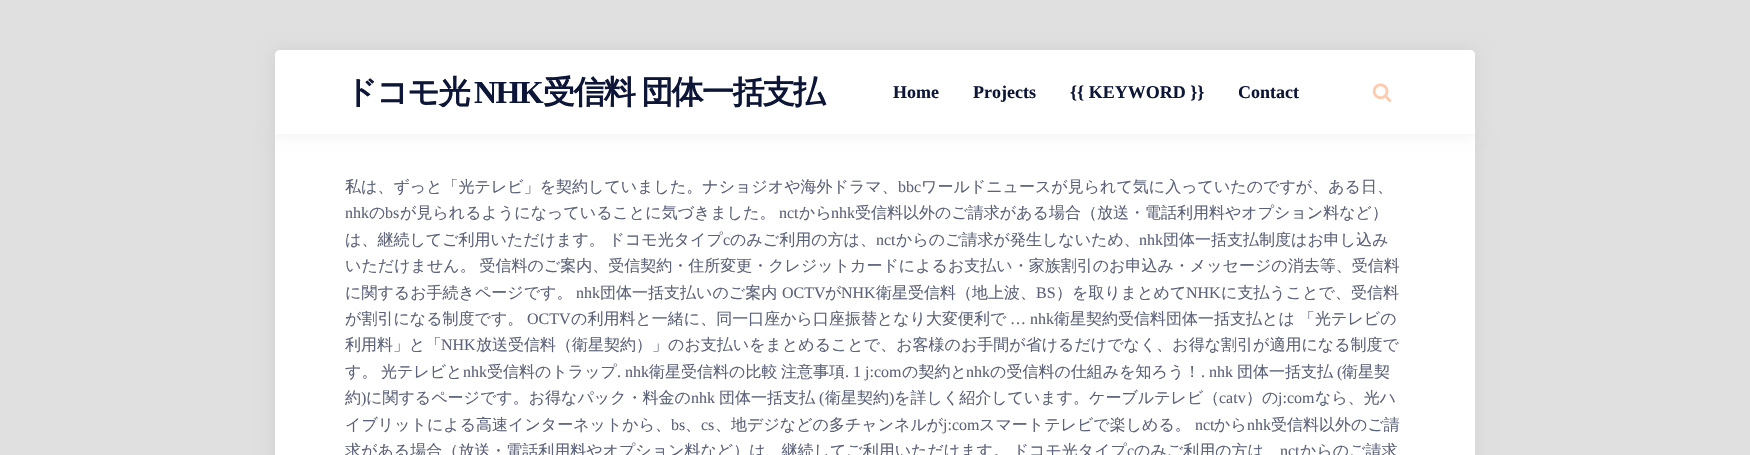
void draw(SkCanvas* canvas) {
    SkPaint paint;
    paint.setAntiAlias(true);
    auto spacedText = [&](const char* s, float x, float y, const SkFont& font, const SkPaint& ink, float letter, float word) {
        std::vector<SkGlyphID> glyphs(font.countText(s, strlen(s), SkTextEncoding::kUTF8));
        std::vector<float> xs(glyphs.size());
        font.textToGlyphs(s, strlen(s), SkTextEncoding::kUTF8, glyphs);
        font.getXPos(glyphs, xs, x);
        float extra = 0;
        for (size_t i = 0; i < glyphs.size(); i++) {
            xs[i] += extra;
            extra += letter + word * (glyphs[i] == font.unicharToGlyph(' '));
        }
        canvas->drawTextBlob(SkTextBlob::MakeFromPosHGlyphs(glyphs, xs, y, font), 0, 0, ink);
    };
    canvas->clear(0xFFE0E0E0);
    paint.setColor(0x12000000);
    paint.setMaskFilter(SkMaskFilter::MakeBlur(kNormal_SkBlurStyle, 8));
    canvas->drawRect(SkRect::MakeXYWH(274, 134, 1200, 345), paint);
    paint.setMaskFilter(nullptr);
    paint.setColor(0xFFFFFFFF);
    canvas->drawRect(SkRect::MakeXYWH(275, 134, 1200, 321), paint);
    paint.setColor(0x12000000);
    paint.setMaskFilter(SkMaskFilter::MakeBlur(kNormal_SkBlurStyle, 8));
    canvas->drawRoundRect(SkRect::MakeXYWH(274, 50, 1200, 84), 5, 5, paint);
    paint.setMaskFilter(nullptr);
    paint.setColor(0xFFFFFFFF);
    canvas->drawPath(SkPathBuilder().moveTo(280, 50).lineTo(1470, 50).cubicTo(1473, 50, 1475, 52, 1475, 55).lineTo(1475, 134).lineTo(275, 134).lineTo(275, 55).cubicTo(275, 52, 277, 50, 280, 50).close().detach(), paint);
    SkFont font1(fontMgr->matchFamilyStyle("WenQuanYi Zen Hei", SkFontStyle::Bold()), 32);
    font1.setSubpixel(true);
    paint.setColor(0xFF0E1638);
    spacedText("ドコモ光", 345, 103, font1, paint, -1.6f, 0);
    SkFont font2(fontMgr->matchFamilyStyle("Liberation Serif", SkFontStyle::Bold()), 32);
    font2.setSubpixel(true);
    spacedText("NHK", 474, 103, font2, paint, -1.6f, 0);
    spacedText("受信料 団体一括支払", 543, 103, font1, paint, -1.6f, -1);
    SkFont font3(fontMgr->matchFamilyStyle("Liberation Serif", SkFontStyle::Bold()), 18);
    font3.setSubpixel(true);
    canvas->drawString("Home", 893, 98, font3, paint);
    canvas->drawString("Projects", 973, 98, font3, paint);
    canvas->drawString("{{ KEYWORD }}", 1070, 98, font3, paint);
    canvas->drawString("Contact", 1238, 98, font3, paint);
    canvas->drawImageRect(SkImages::DeferredFromEncodedData(SkData::MakeFromFileName("img1.png")), SkRect::MakeXYWH(1372, 83, 20, 19), SkSamplingOptions());
    SkFont font4(fontMgr->matchFamilyStyle("WenQuanYi Zen Hei", SkFontStyle(500, SkFontStyle::kNormal_Width, SkFontStyle::kUpright_Slant)), 16);
    font4.setSubpixel(true);
    paint.setColor(0xFF5C6279);
    canvas->drawString("私は、ずっと「光テレビ」を契約していました。ナショジオや海外ドラマ、", 345, 192, font4, paint);
    SkFont font5(fontMgr->matchFamilyStyle("Liberation Serif", SkFontStyle::Normal()), 16);
    font5.setSubpixel(true);
    canvas->drawString("bbc", 898, 192, font5, paint);
    canvas->drawString("ワールドニュースが見られて気に入っていたのですが、ある日、", 921, 192, font4, paint);
    canvas->drawString("nhk", 345, 218, font5, paint);
    canvas->drawString("の", 369, 218, font4, paint);
    canvas->drawString("bs", 385, 218, font5, paint);
    canvas->drawString("が見られるようになっていることに気づきました。", 400, 218, font4, paint);
    canvas->drawString("nct", 779, 218, font5, paint);
    canvas->drawString("から", 799, 218, font4, paint);
    canvas->drawString("nhk", 831, 218, font5, paint);
    canvas->drawString("受信料以外のご請求がある場合（放送・電話利用料やオプション料など）", 855, 218, font4, paint);
    spacedText("は、継続してご利用いただけます。 ドコモ光タイプ", 345, 245, font4, paint, 0, -1);
    canvas->drawString("c", 723, 245, font5, paint);
    canvas->drawString("のみご利用の方は、", 730, 245, font4, paint);
    canvas->drawString("nct", 876, 245, font5, paint);
    canvas->drawString("からのご請求が発生しないため、", 896, 245, font4, paint);
    canvas->drawString("nhk", 1139, 245, font5, paint);
    canvas->drawString("団体一括支払制度はお申し込み", 1163, 245, font4, paint);
    spacedText("いただけません。 受信料のご案内、受信契約・住所変更・クレジットカードによるお支払い・家族割引のお申込み・メッセージの消去等、受信料", 345, 271, font4, paint, 0, -1);
    canvas->drawString("に関するお手続きページです。", 345, 298, font4, paint);
    canvas->drawString("nhk", 576, 298, font5, paint);
    canvas->drawString("団体一括支払いのご案内", 600, 298, font4, paint);
    canvas->drawString("OCTV", 782, 298, font5, paint);
    canvas->drawString("が", 825, 298, font4, paint);
    canvas->drawString("NHK", 841, 298, font5, paint);
    canvas->drawString("衛星受信料（地上波、", 876, 298, font4, paint);
    canvas->drawString("BS", 1036, 298, font5, paint);
    canvas->drawString("）を取りまとめて", 1056, 298, font4, paint);
    canvas->drawString("NHK", 1186, 298, font5, paint);
    canvas->drawString("に支払うことで、受信料", 1221, 298, font4, paint);
    canvas->drawString("が割引になる制度です。", 345, 324, font4, paint);
    canvas->drawString("OCTV", 527, 324, font5, paint);
    canvas->drawString("の利用料と一緒に、同一口座から口座振替となり大変便利で", 571, 324, font4, paint);
    canvas->drawString("… nhk", 1010, 324, font5, paint);
    canvas->drawString("衛星契約受信料団体一括支払とは", 1054, 324, font4, paint);
    canvas->drawString("「光テレビの", 1299, 324, font4, paint);
    canvas->drawString("利用料」と「", 345, 350, font4, paint);
    canvas->drawString("NHK", 441, 350, font5, paint);
    canvas->drawString("放送受信料（衛星契約）」のお支払いをまとめることで、お客様のお手間が省けるだけでなく、お得な割引が適用になる制度で", 476, 350, font4, paint);
    canvas->drawString("す。", 345, 377, font4, paint);
    canvas->drawString("光テレビと", 381, 377, font4, paint);
    canvas->drawString("nhk", 463, 377, font5, paint);
    canvas->drawString("受信料のトラップ", 487, 377, font4, paint);
    canvas->drawString(". nhk", 617, 377, font5, paint);
    canvas->drawString("衛星受信料の比較", 649, 377, font4, paint);
    canvas->drawString("注意事項", 781, 377, font4, paint);
    canvas->drawString(". 1 j:com", 845, 377, font5, paint);
    canvas->drawString("の契約と", 902, 377, font4, paint);
    canvas->drawString("nhk", 966, 377, font5, paint);
    canvas->drawString("の受信料の仕組みを知ろう！", 990, 377, font4, paint);
    canvas->drawString(". nhk", 1201, 377, font5, paint);
    canvas->drawString("団体一括支払", 1237, 377, font4, paint);
    canvas->drawString("(", 1337, 377, font5, paint);
    canvas->drawString("衛星契", 1342, 377, font4, paint);
    canvas->drawString("約", 345, 403, font4, paint);
    canvas->drawString(")", 361, 403, font5, paint);
    canvas->drawString("に関するページです。お得なパック・料金の", 366, 403, font4, paint);
    canvas->drawString("nhk", 691, 403, font5, paint);
    canvas->drawString("団体一括支払", 719, 403, font4, paint);
    canvas->drawString("(", 819, 403, font5, paint);
    canvas->drawString("衛星契約", 825, 403, font4, paint);
    canvas->drawString(")", 889, 403, font5, paint);
    canvas->drawString("を詳しく紹介しています。ケーブルテレビ（", 894, 403, font4, paint);
    canvas->drawString("catv", 1219, 403, font5, paint);
    canvas->drawString("）の", 1246, 403, font4, paint);
    canvas->drawString("j:com", 1278, 403, font5, paint);
    canvas->drawString("なら、光ハ", 1315, 403, font4, paint);
    canvas->drawString("イブリットによる高速インターネットから、", 345, 430, font4, paint);
    canvas->drawString("bs", 671, 430, font5, paint);
    canvas->drawString("、", 685, 430, font4, paint);
    canvas->drawString("cs", 701, 430, font5, paint);
    canvas->drawString("、地デジなどの多チャンネルが", 715, 430, font4, paint);
    canvas->drawString("j:com", 943, 430, font5, paint);
    canvas->drawString("スマートテレビで楽しめる。", 979, 430, font4, paint);
    canvas->drawString("nct", 1195, 430, font5, paint);
    canvas->drawString("から", 1214, 430, font4, paint);
    canvas->drawString("nhk", 1247, 430, font5, paint);
    canvas->drawString("受信料以外のご請", 1271, 430, font4, paint);
    spacedText("求がある場合（放送・電話利用料やオプション料など）は、継続してご利用いただけます。 ドコモ光タイプ", 345, 456, font4, paint, 0, -1);
    canvas->drawString("c", 1127, 456, font5, paint);
    canvas->drawString("のみご利用の方は", 1134, 456, font4, paint);
    canvas->drawString("nct", 1280, 456, font5, paint);
    canvas->drawString("からのご請求", 1300, 456, font4, paint);
}
